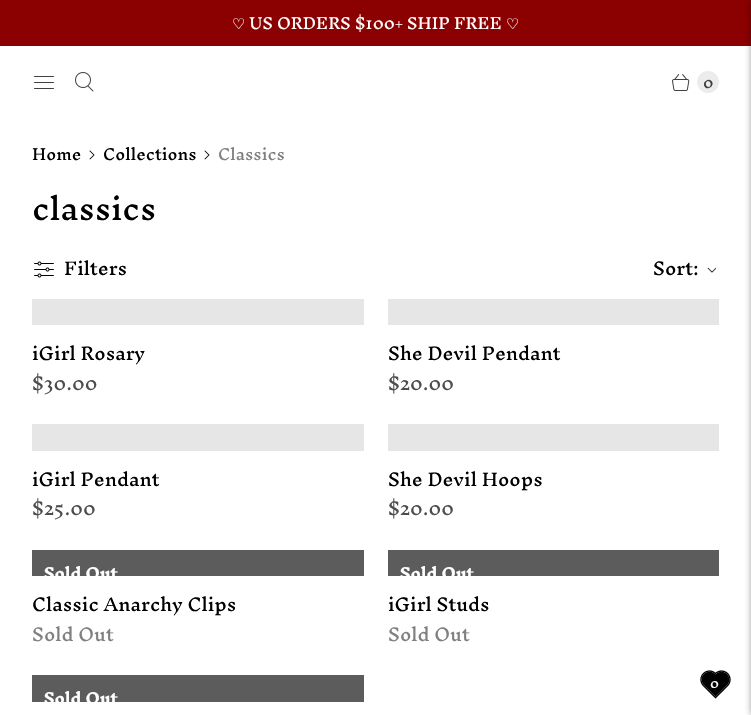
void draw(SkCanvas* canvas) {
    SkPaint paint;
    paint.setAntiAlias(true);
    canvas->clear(0xFFFFFFFF);
    paint.setColor(0xFF8B0000);
    canvas->drawRect(SkRect::MakeXYWH(0, 0, 751, 46), paint);
    SkFont font1(fontMgr->matchFamilyStyle("DejaVu Sans", SkFontStyle::Normal()), 14.9f);
    font1.setSubpixel(true);
    paint.setColor(0xFFFFFFFF);
    canvas->drawString("♡", 232, 29, font1, paint);
    SkFont font2(fontMgr->matchFamilyStyle("Inknut Antiqua", SkFontStyle::Normal()), 14.9f);
    font2.setSubpixel(true);
    canvas->drawString("US ORDERS $100+ SHIP FREE", 249, 29, font2, paint);
    canvas->drawString("♡", 506, 29, font1, paint);
    canvas->drawImageRect(SkImages::DeferredFromEncodedData(SkData::MakeFromFileName("img1.png")), SkRect::MakeXYWH(34, 76, 20, 13), SkSamplingOptions());
    canvas->drawImageRect(SkImages::DeferredFromEncodedData(SkData::MakeFromFileName("img2.png")), SkRect::MakeXYWH(75, 72, 19, 20), SkSamplingOptions());
    canvas->drawImageRect(SkImages::DeferredFromEncodedData(SkData::MakeFromFileName("img3.png")), SkRect::MakeXYWH(672, 74, 18, 17), SkSamplingOptions());
    paint.setColor(0xFFECECEC);
    canvas->drawCircle(708, 82, 11, paint);
    SkFont font3(fontMgr->matchFamilyStyle("Inknut Antiqua", SkFontStyle::Normal()), 14);
    font3.setSubpixel(true);
    paint.setColor(0xFF404040);
    canvas->drawString("0", 703, 88, font3, paint);
    paint.setColor(0xFF000000);
    canvas->drawString("Home", 32, 160, font2, paint);
    canvas->drawImageRect(SkImages::DeferredFromEncodedData(SkData::MakeFromFileName("img4.png")), SkRect::MakeXYWH(89, 150, 6, 10), SkSamplingOptions());
    canvas->drawString("Collections", 103, 160, font2, paint);
    canvas->drawImageRect(SkImages::DeferredFromEncodedData(SkData::MakeFromFileName("img4.png")), SkRect::MakeXYWH(204, 150, 6, 10), SkSamplingOptions());
    paint.setColor(0xFF808080);
    canvas->drawString("Classics", 218, 160, font2, paint);
    SkFont font4(fontMgr->matchFamilyStyle("Inknut Antiqua", SkFontStyle::Normal()), 29);
    font4.setSubpixel(true);
    paint.setColor(0xFF000000);
    canvas->drawString("classics", 32, 220, font4, paint);
    canvas->drawImageRect(SkImages::DeferredFromEncodedData(SkData::MakeFromFileName("img5.png")), SkRect::MakeXYWH(34, 261, 20, 17), SkSamplingOptions());
    SkFont font5(fontMgr->matchFamilyStyle("Inknut Antiqua", SkFontStyle::Normal()), 17);
    font5.setSubpixel(true);
    canvas->drawString("Filters", 64, 275, font5, paint);
    canvas->drawString("Sort:", 653, 275, font5, paint);
    canvas->drawImageRect(SkImages::DeferredFromEncodedData(SkData::MakeFromFileName("img6.png")), SkRect::MakeXYWH(707, 267, 9, 6), SkSamplingOptions());
    paint.setColor(0xFFE6E6E6);
    canvas->drawRect(SkRect::MakeXYWH(32, 299, 332, 26), paint);
    paint.setColor(0xFF000000);
    canvas->drawString("iGirl Rosary", 32, 360, font5, paint);
    paint.setColor(0xFF4D4D4D);
    canvas->drawString("$30.00", 32, 390, font5, paint);
    paint.setColor(0xFFE6E6E6);
    canvas->drawRect(SkRect::MakeXYWH(388, 299, 331, 26), paint);
    paint.setColor(0xFF000000);
    canvas->drawString("She Devil Pendant", 388, 360, font5, paint);
    paint.setColor(0xFF4D4D4D);
    canvas->drawString("$20.00", 388, 390, font5, paint);
    paint.setColor(0xFFE6E6E6);
    canvas->drawRect(SkRect::MakeXYWH(32, 424, 332, 27), paint);
    paint.setColor(0xFF000000);
    canvas->drawString("iGirl Pendant", 32, 486, font5, paint);
    paint.setColor(0xFF4D4D4D);
    canvas->drawString("$25.00", 32, 515, font5, paint);
    paint.setColor(0xFFE6E6E6);
    canvas->drawRect(SkRect::MakeXYWH(388, 424, 331, 27), paint);
    paint.setColor(0xFF000000);
    canvas->drawString("She Devil Hoops", 388, 486, font5, paint);
    paint.setColor(0xFF4D4D4D);
    canvas->drawString("$20.00", 388, 515, font5, paint);
    paint.setColor(0xFF5C5C5C);
    canvas->drawRect(SkRect::MakeXYWH(32, 550, 332, 26), paint);
    SkFont font6(fontMgr->matchFamilyStyle("Inknut Antiqua", SkFontStyle::Bold()), 14.9f);
    font6.setSubpixel(true);
    paint.setColor(0xFFFFFFFF);
    canvas->drawString("Sold Out", 44, 579, font6, paint);
    paint.setColor(0xFF000000);
    canvas->drawString("Classic Anarchy Clips", 32, 611, font5, paint);
    paint.setColor(0xFF808080);
    canvas->drawString("Sold Out", 32, 641, font5, paint);
    paint.setColor(0xFF5C5C5C);
    canvas->drawRect(SkRect::MakeXYWH(388, 550, 331, 26), paint);
    paint.setColor(0xFFFFFFFF);
    canvas->drawString("Sold Out", 400, 579, font6, paint);
    paint.setColor(0xFF000000);
    canvas->drawString("iGirl Studs", 388, 611, font5, paint);
    paint.setColor(0xFF808080);
    canvas->drawString("Sold Out", 388, 641, font5, paint);
    paint.setColor(0xFF5C5C5C);
    canvas->drawRect(SkRect::MakeXYWH(32, 675, 332, 27), paint);
    paint.setColor(0xFFFFFFFF);
    canvas->drawString("Sold Out", 44, 704, font6, paint);
    canvas->drawImageRect(SkImages::DeferredFromEncodedData(SkData::MakeFromFileName("img7.png")), SkRect::MakeXYWH(700, 670, 31, 29), SkSamplingOptions());
    SkFont font7(fontMgr->matchFamilyStyle("Inknut Antiqua", SkFontStyle::Normal()), 12);
    font7.setSubpixel(true);
    canvas->drawString("0", 710, 688, font7, paint);
    paint.setColor(0x80000000);
    paint.setMaskFilter(SkMaskFilter::MakeBlur(kNormal_SkBlurStyle, 3.5f));
    canvas->drawRect(SkRect::MakeXYWH(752, 0, 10, 715), paint);
    paint.setMaskFilter(nullptr);
}
